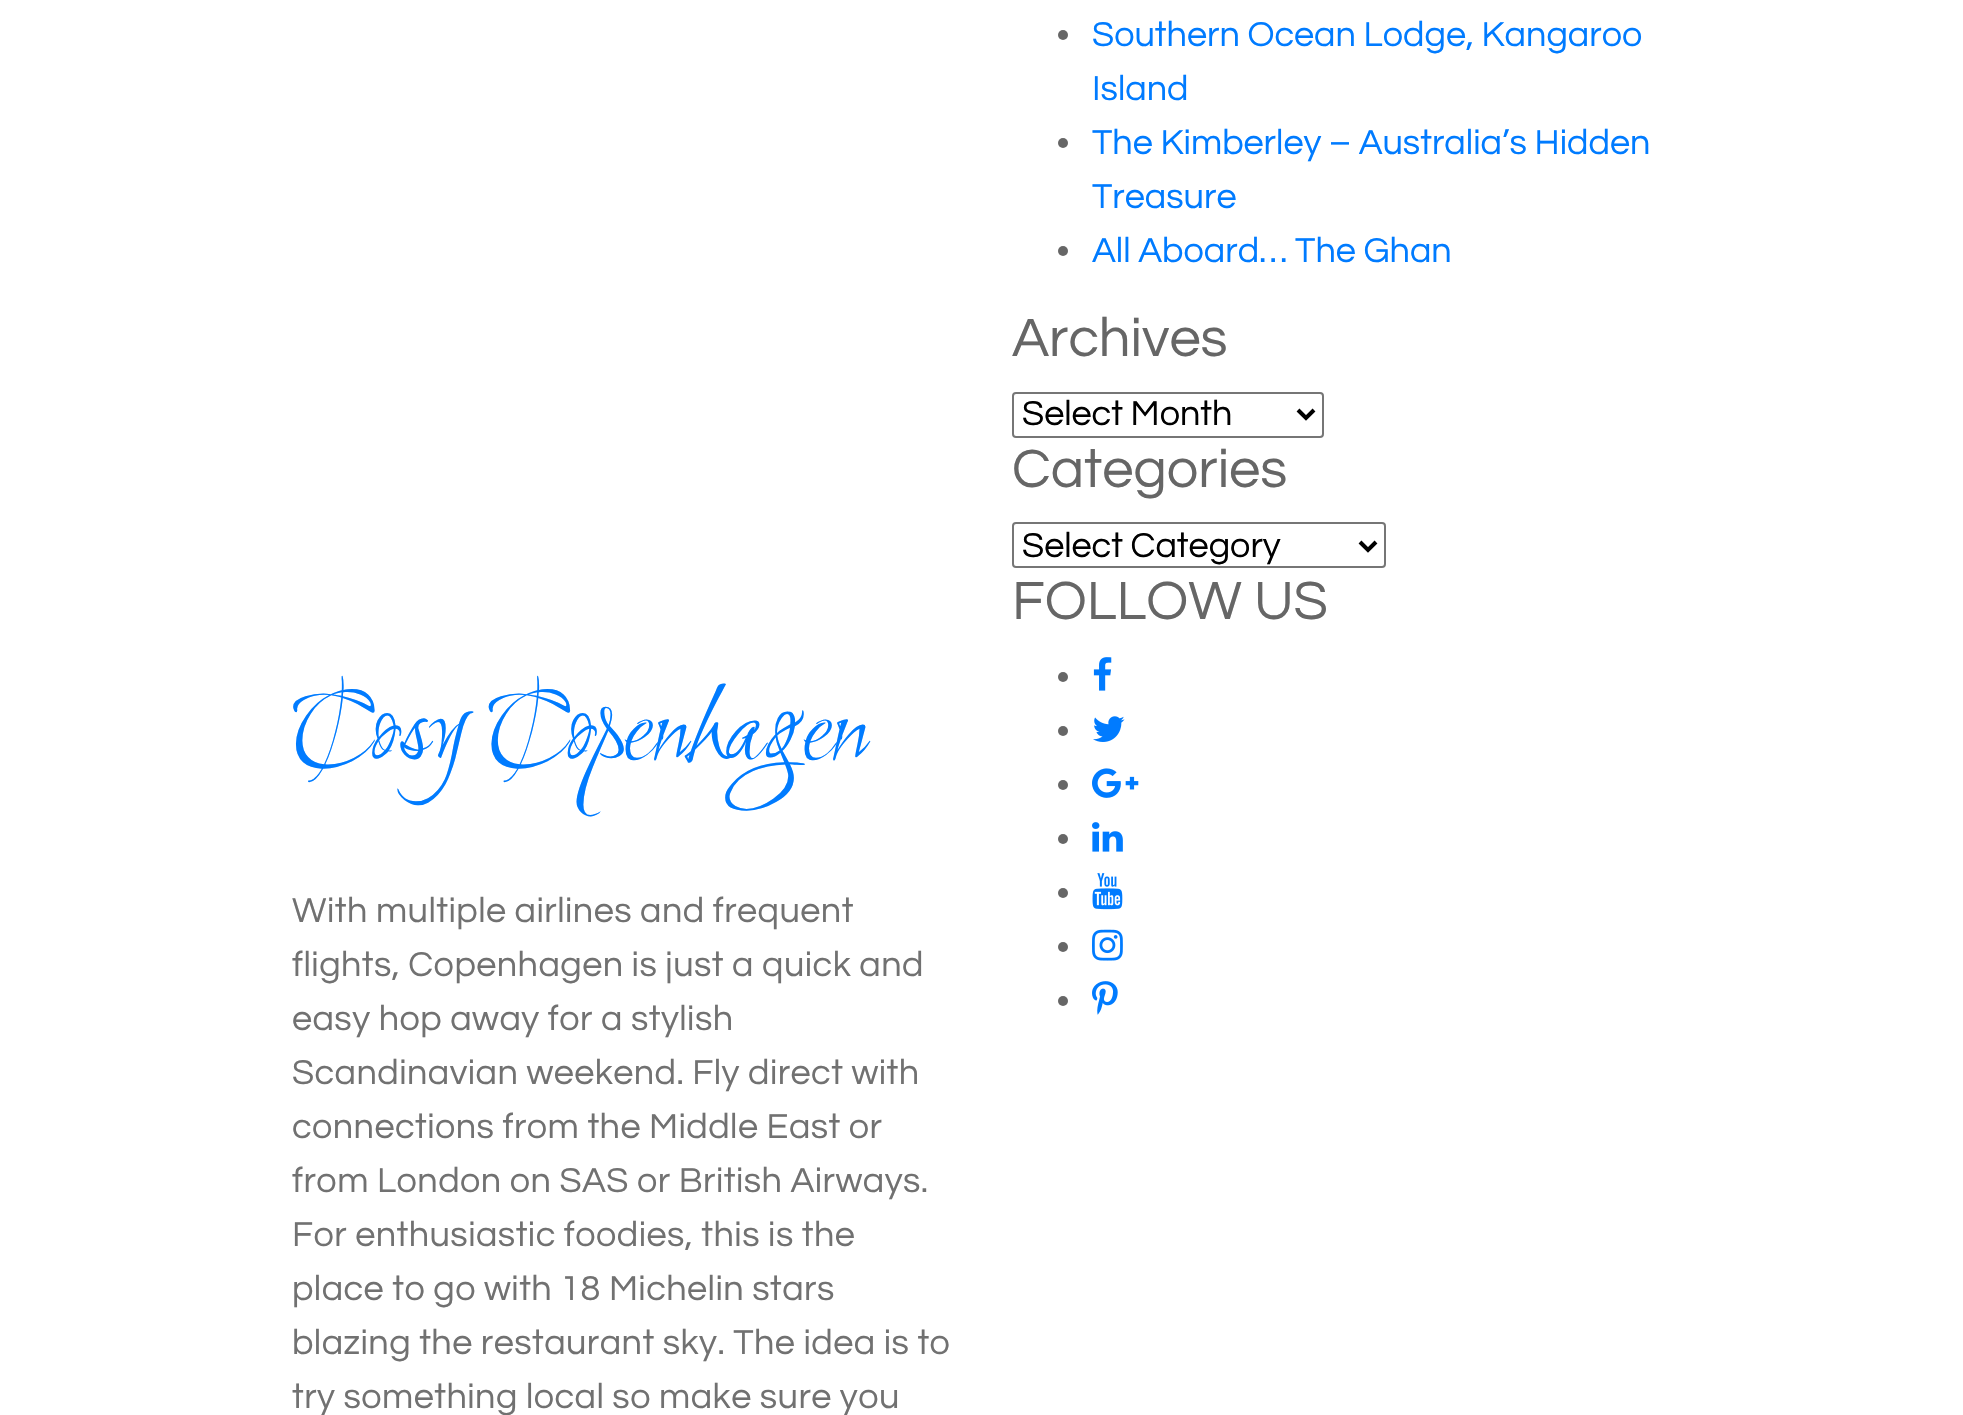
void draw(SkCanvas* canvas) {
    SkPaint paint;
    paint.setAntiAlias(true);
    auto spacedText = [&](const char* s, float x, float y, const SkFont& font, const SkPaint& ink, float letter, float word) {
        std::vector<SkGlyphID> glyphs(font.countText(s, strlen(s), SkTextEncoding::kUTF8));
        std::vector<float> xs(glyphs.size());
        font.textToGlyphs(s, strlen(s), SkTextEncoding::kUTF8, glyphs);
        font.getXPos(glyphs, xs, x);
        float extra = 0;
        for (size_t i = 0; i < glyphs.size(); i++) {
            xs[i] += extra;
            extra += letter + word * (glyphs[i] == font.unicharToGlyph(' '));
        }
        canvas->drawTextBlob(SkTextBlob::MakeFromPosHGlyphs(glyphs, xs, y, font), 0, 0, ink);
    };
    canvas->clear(0xFFFFFFFF);
    paint.setColor(0xFF666666);
    canvas->drawCircle(1063, 35, 5, paint);
    SkFont font1(fontMgr->matchFamilyStyle("Questrial", SkFontStyle::Normal()), 36);
    font1.setSubpixel(true);
    paint.setColor(0xFF007BFF);
    canvas->drawString("Southern Ocean Lodge, Kangaroo", 1092, 46, font1, paint);
    canvas->drawString("Island", 1092, 100, font1, paint);
    paint.setColor(0xFF666666);
    canvas->drawCircle(1063, 143, 5, paint);
    paint.setColor(0xFF007BFF);
    canvas->drawString("The Kimberley – Australia’s Hidden", 1092, 154, font1, paint);
    canvas->drawString("Treasure", 1092, 208, font1, paint);
    paint.setColor(0xFF666666);
    canvas->drawCircle(1063, 251, 5, paint);
    paint.setColor(0xFF007BFF);
    canvas->drawString("All Aboard… The Ghan", 1092, 262, font1, paint);
    SkFont font2(fontMgr->matchFamilyStyle("Questrial", SkFontStyle::Normal()), 56);
    font2.setSubpixel(true);
    paint.setColor(0xFF666666);
    canvas->drawString("Archives", 1012, 356, font2, paint);
    paint.setStyle(SkPaint::kStroke_Style);
    paint.setStrokeWidth(2);
    paint.setColor(0xFF767676);
    canvas->drawRoundRect(SkRect::MakeXYWH(1013, 393, 310, 44), 3, 3, paint);
    paint.setStrokeWidth(4);
    paint.setColor(0xFF000000);
    canvas->drawPath(SkPathBuilder().moveTo(1298, 410).lineTo(1306, 418).lineTo(1314, 410).detach(), paint);
    paint.setStyle(SkPaint::kFill_Style);
    canvas->drawString("Select Month", 1022, 425, font1, paint);
    paint.setColor(0xFF666666);
    canvas->drawString("Categories", 1012, 487, font2, paint);
    paint.setStyle(SkPaint::kStroke_Style);
    paint.setStrokeWidth(2);
    paint.setColor(0xFF767676);
    canvas->drawRoundRect(SkRect::MakeXYWH(1013, 523, 372, 44), 3, 3, paint);
    paint.setStrokeWidth(4);
    paint.setColor(0xFF000000);
    canvas->drawPath(SkPathBuilder().moveTo(1360, 542).lineTo(1368, 550).lineTo(1376, 542).detach(), paint);
    paint.setStyle(SkPaint::kFill_Style);
    canvas->drawString("Select Category", 1022, 557, font1, paint);
    paint.setColor(0xFF666666);
    canvas->drawString("FOLLOW US", 1012, 619, font2, paint);
    canvas->drawCircle(1063, 677, 5, paint);
    canvas->drawImageRect(SkImages::DeferredFromEncodedData(SkData::MakeFromFileName("img1.png")), SkRect::MakeXYWH(1093, 657, 19, 34), SkSamplingOptions());
    canvas->drawCircle(1063, 731, 5, paint);
    canvas->drawImageRect(SkImages::DeferredFromEncodedData(SkData::MakeFromFileName("img2.png")), SkRect::MakeXYWH(1093, 716, 32, 26), SkSamplingOptions());
    canvas->drawCircle(1063, 785, 5, paint);
    canvas->drawImageRect(SkImages::DeferredFromEncodedData(SkData::MakeFromFileName("img3.png")), SkRect::MakeXYWH(1092, 768, 47, 30), SkSamplingOptions());
    canvas->drawCircle(1063, 839, 5, paint);
    canvas->drawImageRect(SkImages::DeferredFromEncodedData(SkData::MakeFromFileName("img4.png")), SkRect::MakeXYWH(1092, 822, 31, 30), SkSamplingOptions());
    canvas->drawCircle(1063, 893, 5, paint);
    canvas->drawImageRect(SkImages::DeferredFromEncodedData(SkData::MakeFromFileName("img5.png")), SkRect::MakeXYWH(1092, 873, 31, 37), SkSamplingOptions());
    canvas->drawCircle(1063, 947, 5, paint);
    canvas->drawImageRect(SkImages::DeferredFromEncodedData(SkData::MakeFromFileName("img6.png")), SkRect::MakeXYWH(1092, 929, 31, 32), SkSamplingOptions());
    canvas->drawCircle(1063, 1001, 5, paint);
    canvas->drawImageRect(SkImages::DeferredFromEncodedData(SkData::MakeFromFileName("img7.png")), SkRect::MakeXYWH(1092, 981, 26, 34), SkSamplingOptions());
    SkFont font3(fontMgr->matchFamilyStyle("Ruthie", SkFontStyle::Normal()), 116);
    font3.setSubpixel(true);
    paint.setColor(0xFF007BFF);
    spacedText("Cosy Copenhagen", 292, 758, font3, paint, -1.25f, 0);
    paint.setColor(0xFF717171);
    spacedText("With multiple airlines and frequent", 292, 922, font1, paint, 0.45f, 0);
    spacedText("flights, Copenhagen is just a quick and", 292, 976, font1, paint, 0.45f, 0);
    spacedText("easy hop away for a stylish", 292, 1030, font1, paint, 0.45f, 0);
    spacedText("Scandinavian weekend. Fly direct with", 292, 1084, font1, paint, 0.45f, 0);
    spacedText("connections from the Middle East or", 292, 1138, font1, paint, 0.45f, 0);
    spacedText("from London on SAS or British Airways.", 292, 1192, font1, paint, 0.45f, 0);
    spacedText("For enthusiastic foodies, this is the", 292, 1246, font1, paint, 0.45f, 0);
    spacedText("place to go with 18 Michelin stars", 292, 1300, font1, paint, 0.45f, 0);
    spacedText("blazing the restaurant sky. The idea is to", 292, 1354, font1, paint, 0.45f, 0);
    spacedText("try something local so make sure you", 292, 1408, font1, paint, 0.45f, 0);
}
